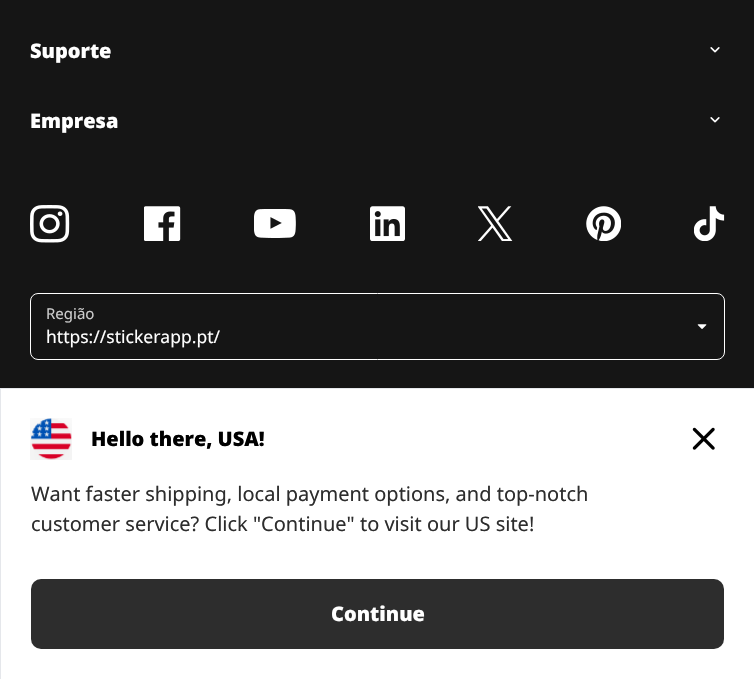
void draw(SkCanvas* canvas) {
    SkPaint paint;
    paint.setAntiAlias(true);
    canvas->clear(0xFF151515);
    SkFont font1(fontMgr->matchFamilyStyle("Noto Sans", SkFontStyle(900, SkFontStyle::kNormal_Width, SkFontStyle::kUpright_Slant)), 20);
    font1.setSubpixel(true);
    paint.setColor(0xFFFFFFFF);
    canvas->drawString("Suporte", 30, 58, font1, paint);
    canvas->drawImageRect(SkImages::DeferredFromEncodedData(SkData::MakeFromFileName("img1.png")), SkRect::MakeXYWH(710, 47, 10, 6), SkSamplingOptions());
    canvas->drawString("Empresa", 30, 128, font1, paint);
    canvas->drawImageRect(SkImages::DeferredFromEncodedData(SkData::MakeFromFileName("img1.png")), SkRect::MakeXYWH(710, 117, 10, 6), SkSamplingOptions());
    canvas->drawImageRect(SkImages::DeferredFromEncodedData(SkData::MakeFromFileName("img2.png")), SkRect::MakeXYWH(30, 205, 40, 38), SkSamplingOptions());
    canvas->drawImageRect(SkImages::DeferredFromEncodedData(SkData::MakeFromFileName("img3.png")), SkRect::MakeXYWH(144, 206, 37, 35), SkSamplingOptions());
    canvas->drawImageRect(SkImages::DeferredFromEncodedData(SkData::MakeFromFileName("img4.png")), SkRect::MakeXYWH(254, 209, 42, 29), SkSamplingOptions());
    canvas->drawImageRect(SkImages::DeferredFromEncodedData(SkData::MakeFromFileName("img5.png")), SkRect::MakeXYWH(370, 206, 35, 35), SkSamplingOptions());
    canvas->drawImageRect(SkImages::DeferredFromEncodedData(SkData::MakeFromFileName("img6.png")), SkRect::MakeXYWH(478, 206, 35, 35), SkSamplingOptions());
    canvas->drawImageRect(SkImages::DeferredFromEncodedData(SkData::MakeFromFileName("img7.png")), SkRect::MakeXYWH(586, 206, 35, 35), SkSamplingOptions());
    canvas->drawImageRect(SkImages::DeferredFromEncodedData(SkData::MakeFromFileName("img8.png")), SkRect::MakeXYWH(694, 206, 31, 35), SkSamplingOptions());
    paint.setStyle(SkPaint::kStroke_Style);
    paint.setStrokeWidth(1);
    canvas->drawRoundRect(SkRect::MakeXYWH(30.5f, 293.5f, 694, 66), 7.5f, 7.5f, paint);
    SkFont font2(fontMgr->matchFamilyStyle("Noto Sans", SkFontStyle::Normal()), 15);
    font2.setSubpixel(true);
    paint.setStyle(SkPaint::kFill_Style);
    paint.setColor(0xFFCCCCCC);
    canvas->drawString("Região", 46, 319, font2, paint);
    SkFont font3(fontMgr->matchFamilyStyle("Noto Sans", SkFontStyle::Normal()), 17.5f);
    font3.setSubpixel(true);
    paint.setColor(0xFFFFFFFF);
    canvas->drawString("https://stickerapp.pt/", 46, 343, font3, paint);
    canvas->drawImageRect(SkImages::DeferredFromEncodedData(SkData::MakeFromFileName("img9.png")), SkRect::MakeXYWH(697, 324, 10, 5), SkSamplingOptions());
    canvas->drawRect(SkRect::MakeXYWH(0.5f, 388.5f, 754, 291), paint);
    paint.setStyle(SkPaint::kStroke_Style);
    paint.setColor(0xFFE5E7EB);
    canvas->drawRect(SkRect::MakeXYWH(0.5f, 388.5f, 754, 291), paint);
    canvas->drawImageRect(SkImages::DeferredFromEncodedData(SkData::MakeFromFileName("img10.png")), SkRect::MakeXYWH(30, 418, 42, 42), SkSamplingOptions());
    paint.setStyle(SkPaint::kFill_Style);
    paint.setColor(0xFF000000);
    canvas->drawString("Hello there, USA!", 91, 446, font1, paint);
    canvas->drawImageRect(SkImages::DeferredFromEncodedData(SkData::MakeFromFileName("img11.png")), SkRect::MakeXYWH(692, 427, 23, 23), SkSamplingOptions());
    SkFont font4(fontMgr->matchFamilyStyle("Noto Sans", SkFontStyle::Normal()), 20);
    font4.setSubpixel(true);
    paint.setColor(0xFF2D2D2D);
    canvas->drawString("Want faster shipping, local payment options, and top-notch", 31, 501, font4, paint);
    canvas->drawString("customer service? Click \"Continue\" to visit our US site!", 31, 531, font4, paint);
    canvas->drawRoundRect(SkRect::MakeXYWH(31, 579, 693, 70), 10, 10, paint);
    paint.setColor(0xFFFFFFFF);
    canvas->drawString("Continue", 331, 621, font1, paint);
}
